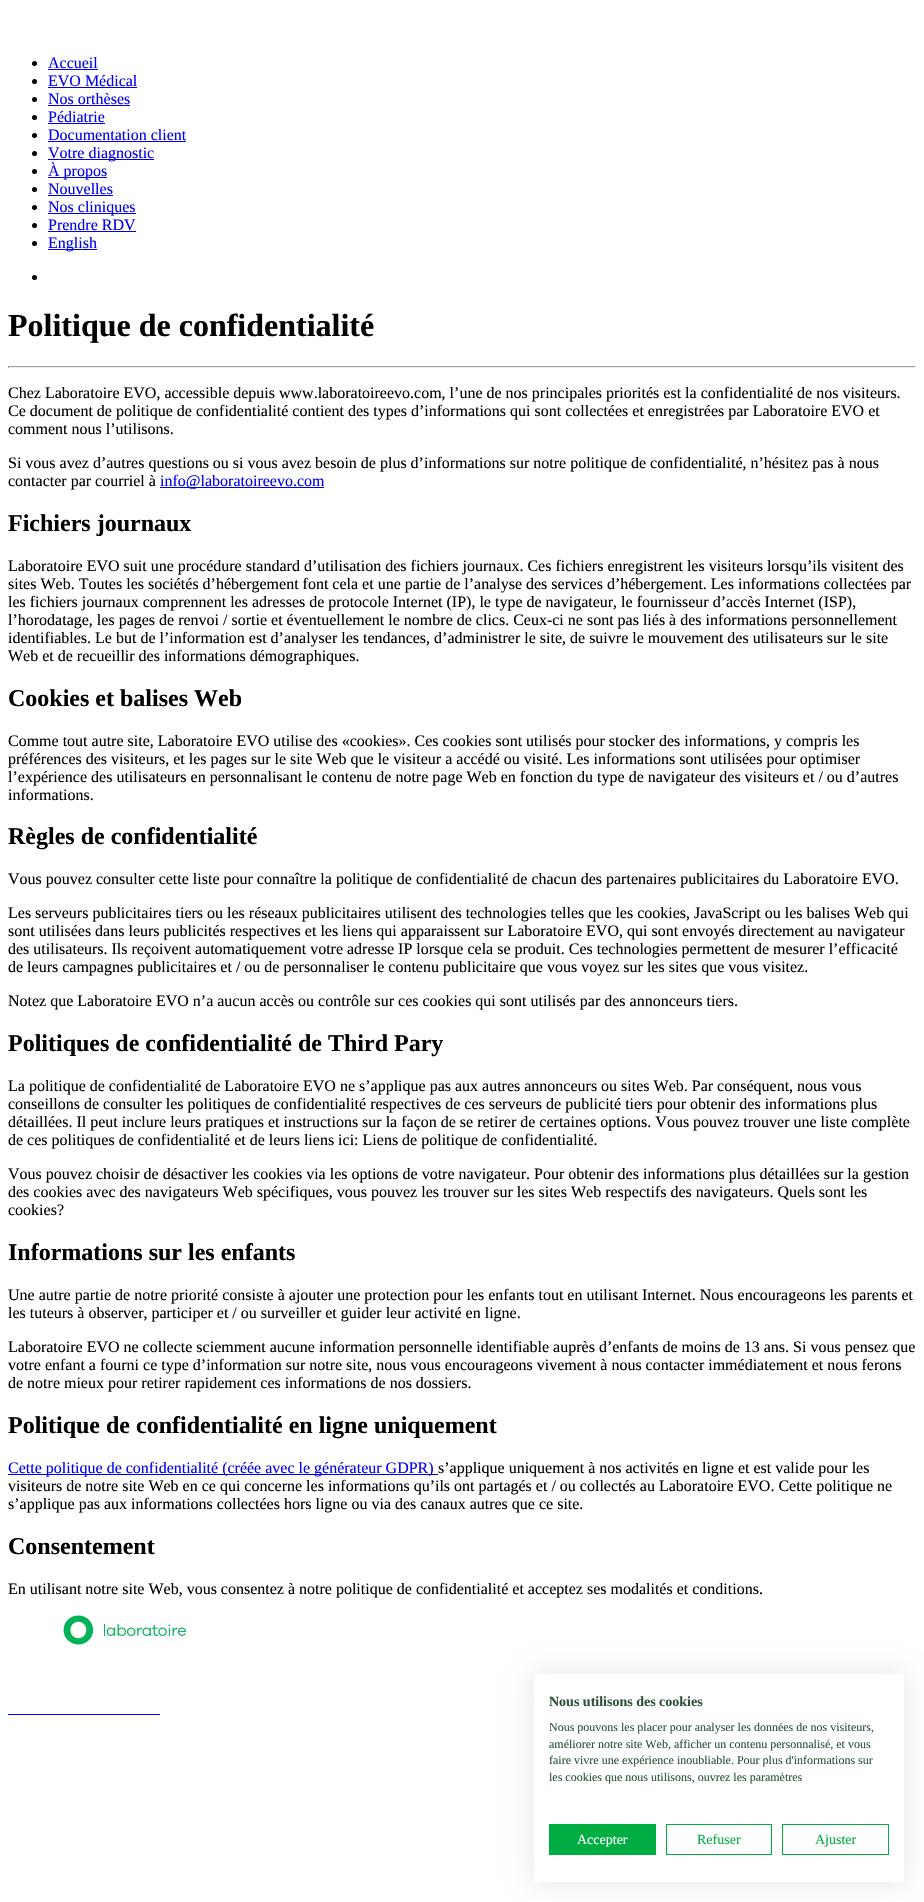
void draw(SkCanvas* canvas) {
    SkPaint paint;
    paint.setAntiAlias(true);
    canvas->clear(0xFFFFFFFF);
    paint.setColor(0xFFF5F6F6);
    canvas->drawRect(SkRect::MakeXYWH(8, 21, 1, 1), paint);
    paint.setColor(0xFF000000);
    canvas->drawCircle(34.5f, 63.5f, 2.5f, paint);
    SkFont font1(fontMgr->matchFamilyStyle("Liberation Serif", SkFontStyle::Normal()), 16);
    font1.setSubpixel(true);
    paint.setColor(0xFF0000EE);
    canvas->drawString("Accueil", 48, 68, font1, paint);
    canvas->drawRect(SkRect::MakeXYWH(48, 69, 50, 1), paint);
    paint.setColor(0xFF000000);
    canvas->drawCircle(34.5f, 81.5f, 2.5f, paint);
    paint.setColor(0xFF0000EE);
    canvas->drawString("EVO Médical", 48, 86, font1, paint);
    canvas->drawRect(SkRect::MakeXYWH(48, 87, 89, 1), paint);
    paint.setColor(0xFF000000);
    canvas->drawCircle(34.5f, 99.5f, 2.5f, paint);
    paint.setColor(0xFF0000EE);
    canvas->drawString("Nos orthèses", 48, 104, font1, paint);
    canvas->drawRect(SkRect::MakeXYWH(48, 105, 82, 1), paint);
    paint.setColor(0xFF000000);
    canvas->drawCircle(34.5f, 117.5f, 2.5f, paint);
    paint.setColor(0xFF0000EE);
    canvas->drawString("Pédiatrie", 48, 122, font1, paint);
    canvas->drawRect(SkRect::MakeXYWH(48, 123, 57, 1), paint);
    paint.setColor(0xFF000000);
    canvas->drawCircle(34.5f, 135.5f, 2.5f, paint);
    paint.setColor(0xFF0000EE);
    canvas->drawString("Documentation client", 48, 140, font1, paint);
    canvas->drawRect(SkRect::MakeXYWH(48, 141, 138, 1), paint);
    paint.setColor(0xFF000000);
    canvas->drawCircle(34.5f, 153.5f, 2.5f, paint);
    paint.setColor(0xFF0000EE);
    canvas->drawRect(SkRect::MakeXYWH(48, 159, 106, 1), paint);
    canvas->drawString("Votre diagnostic", 48, 158, font1, paint);
    paint.setColor(0xFF000000);
    canvas->drawCircle(34.5f, 171.5f, 2.5f, paint);
    paint.setColor(0xFF0000EE);
    canvas->drawRect(SkRect::MakeXYWH(48, 177, 59, 1), paint);
    canvas->drawString("À propos", 48, 176, font1, paint);
    paint.setColor(0xFF000000);
    canvas->drawCircle(34.5f, 189.5f, 2.5f, paint);
    paint.setColor(0xFF0000EE);
    canvas->drawString("Nouvelles", 48, 194, font1, paint);
    canvas->drawRect(SkRect::MakeXYWH(48, 195, 65, 1), paint);
    paint.setColor(0xFF000000);
    canvas->drawCircle(34.5f, 207.5f, 2.5f, paint);
    paint.setColor(0xFF0000EE);
    canvas->drawRect(SkRect::MakeXYWH(48, 213, 88, 1), paint);
    canvas->drawString("Nos cliniques", 48, 212, font1, paint);
    paint.setColor(0xFF000000);
    canvas->drawCircle(34.5f, 225.5f, 2.5f, paint);
    paint.setColor(0xFF0000EE);
    canvas->drawString("Prendre RDV", 48, 230, font1, paint);
    canvas->drawRect(SkRect::MakeXYWH(48, 231, 88, 1), paint);
    paint.setColor(0xFF000000);
    canvas->drawCircle(34.5f, 243.5f, 2.5f, paint);
    paint.setColor(0xFF0000EE);
    canvas->drawRect(SkRect::MakeXYWH(48, 249, 49, 1), paint);
    canvas->drawString("English", 48, 248, font1, paint);
    paint.setColor(0xFF000000);
    canvas->drawCircle(34.5f, 277.5f, 2.5f, paint);
    SkFont font2(fontMgr->matchFamilyStyle("Liberation Serif", SkFontStyle::Bold()), 32);
    font2.setSubpixel(true);
    canvas->drawString("Politique de confidentialité", 8, 336, font2, paint);
    paint.setColor(0xFF9F9F9F);
    canvas->drawRect(SkRect::MakeXYWH(8, 366, 908, 1), paint);
    paint.setColor(0xFFEEEEEE);
    canvas->drawRect(SkRect::MakeXYWH(915, 366, 1, 2), paint);
    canvas->drawRect(SkRect::MakeXYWH(8, 367, 908, 1), paint);
    paint.setColor(0xFF9F9F9F);
    canvas->drawRect(SkRect::MakeXYWH(8, 366, 1, 2), paint);
    paint.setColor(0xFF000000);
    canvas->drawString("Chez Laboratoire EVO, accessible depuis www.laboratoireevo.com, l’une de nos principales priorités est la confidentialité de nos visiteurs.", 8, 398, font1, paint);
    canvas->drawString("Ce document de politique de confidentialité contient des types d’informations qui sont collectées et enregistrées par Laboratoire EVO et", 8, 416, font1, paint);
    canvas->drawString("comment nous l’utilisons.", 8, 434, font1, paint);
    canvas->drawString("Si vous avez d’autres questions ou si vous avez besoin de plus d’informations sur notre politique de confidentialité, n’hésitez pas à nous", 8, 468, font1, paint);
    canvas->drawString("contacter par courriel à", 8, 486, font1, paint);
    paint.setColor(0xFF0000EE);
    canvas->drawRect(SkRect::MakeXYWH(160, 487, 164, 1), paint);
    canvas->drawString("info@laboratoireevo.com", 160, 486, font1, paint);
    SkFont font3(fontMgr->matchFamilyStyle("Liberation Serif", SkFontStyle::Bold()), 24);
    font3.setSubpixel(true);
    paint.setColor(0xFF000000);
    canvas->drawString("Fichiers journaux", 8, 531, font3, paint);
    canvas->drawString("Laboratoire EVO suit une procédure standard d’utilisation des fichiers journaux. Ces fichiers enregistrent les visiteurs lorsqu’ils visitent des", 8, 571, font1, paint);
    canvas->drawString("sites Web. Toutes les sociétés d’hébergement font cela et une partie de l’analyse des services d’hébergement. Les informations collectées par", 8, 589, font1, paint);
    canvas->drawString("les fichiers journaux comprennent les adresses de protocole Internet (IP), le type de navigateur, le fournisseur d’accès Internet (ISP),", 8, 607, font1, paint);
    canvas->drawString("l’horodatage, les pages de renvoi / sortie et éventuellement le nombre de clics. Ceux-ci ne sont pas liés à des informations personnellement", 8, 625, font1, paint);
    canvas->drawString("identifiables. Le but de l’information est d’analyser les tendances, d’administrer le site, de suivre le mouvement des utilisateurs sur le site", 8, 643, font1, paint);
    canvas->drawString("Web et de recueillir des informations démographiques.", 8, 661, font1, paint);
    canvas->drawString("Cookies et balises Web", 8, 706, font3, paint);
    canvas->drawString("Comme tout autre site, Laboratoire EVO utilise des «cookies». Ces cookies sont utilisés pour stocker des informations, y compris les", 8, 746, font1, paint);
    canvas->drawString("préférences des visiteurs, et les pages sur le site Web que le visiteur a accédé ou visité. Les informations sont utilisées pour optimiser", 8, 764, font1, paint);
    canvas->drawString("l’expérience des utilisateurs en personnalisant le contenu de notre page Web en fonction du type de navigateur des visiteurs et / ou d’autres", 8, 782, font1, paint);
    canvas->drawString("informations.", 8, 800, font1, paint);
    canvas->drawString("Règles de confidentialité", 8, 844, font3, paint);
    canvas->drawString("Vous pouvez consulter cette liste pour connaître la politique de confidentialité de chacun des partenaires publicitaires du Laboratoire EVO.", 8, 884, font1, paint);
    canvas->drawString("Les serveurs publicitaires tiers ou les réseaux publicitaires utilisent des technologies telles que les cookies, JavaScript ou les balises Web qui", 8, 918, font1, paint);
    canvas->drawString("sont utilisées dans leurs publicités respectives et les liens qui apparaissent sur Laboratoire EVO, qui sont envoyés directement au navigateur", 8, 936, font1, paint);
    canvas->drawString("des utilisateurs. Ils reçoivent automatiquement votre adresse IP lorsque cela se produit. Ces technologies permettent de mesurer l’efficacité", 8, 954, font1, paint);
    canvas->drawString("de leurs campagnes publicitaires et / ou de personnaliser le contenu publicitaire que vous voyez sur les sites que vous visitez.", 8, 972, font1, paint);
    canvas->drawString("Notez que Laboratoire EVO n’a aucun accès ou contrôle sur ces cookies qui sont utilisés par des annonceurs tiers.", 8, 1006, font1, paint);
    canvas->drawString("Politiques de confidentialité de Third Pary", 8, 1051, font3, paint);
    canvas->drawString("La politique de confidentialité de Laboratoire EVO ne s’applique pas aux autres annonceurs ou sites Web. Par conséquent, nous vous", 8, 1091, font1, paint);
    canvas->drawString("conseillons de consulter les politiques de confidentialité respectives de ces serveurs de publicité tiers pour obtenir des informations plus", 8, 1109, font1, paint);
    canvas->drawString("détaillées. Il peut inclure leurs pratiques et instructions sur la façon de se retirer de certaines options. Vous pouvez trouver une liste complète", 8, 1127, font1, paint);
    canvas->drawString("de ces politiques de confidentialité et de leurs liens ici: Liens de politique de confidentialité.", 8, 1145, font1, paint);
    canvas->drawString("Vous pouvez choisir de désactiver les cookies via les options de votre navigateur. Pour obtenir des informations plus détaillées sur la gestion", 8, 1179, font1, paint);
    canvas->drawString("des cookies avec des navigateurs Web spécifiques, vous pouvez les trouver sur les sites Web respectifs des navigateurs. Quels sont les", 8, 1197, font1, paint);
    canvas->drawString("cookies?", 8, 1215, font1, paint);
    canvas->drawString("Informations sur les enfants", 8, 1260, font3, paint);
    canvas->drawString("Une autre partie de notre priorité consiste à ajouter une protection pour les enfants tout en utilisant Internet. Nous encourageons les parents et", 8, 1300, font1, paint);
    canvas->drawString("les tuteurs à observer, participer et / ou surveiller et guider leur activité en ligne.", 8, 1318, font1, paint);
    canvas->drawString("Laboratoire EVO ne collecte sciemment aucune information personnelle identifiable auprès d’enfants de moins de 13 ans. Si vous pensez que", 8, 1352, font1, paint);
    canvas->drawString("votre enfant a fourni ce type d’information sur notre site, nous vous encourageons vivement à nous contacter immédiatement et nous ferons", 8, 1370, font1, paint);
    canvas->drawString("de notre mieux pour retirer rapidement ces informations de nos dossiers.", 8, 1388, font1, paint);
    canvas->drawString("Politique de confidentialité en ligne uniquement", 8, 1433, font3, paint);
    paint.setColor(0xFF0000EE);
    canvas->drawRect(SkRect::MakeXYWH(8, 1474, 430, 1), paint);
    canvas->drawString("Cette politique de confidentialité (créée avec le générateur GDPR)", 8, 1473, font1, paint);
    paint.setColor(0xFF000000);
    canvas->drawString("s’applique uniquement à nos activités en ligne et est valide pour les", 438, 1473, font1, paint);
    canvas->drawString("visiteurs de notre site Web en ce qui concerne les informations qu’ils ont partagés et / ou collectés au Laboratoire EVO. Cette politique ne", 8, 1491, font1, paint);
    canvas->drawString("s’applique pas aux informations collectées hors ligne ou via des canaux autres que ce site.", 8, 1509, font1, paint);
    canvas->drawString("Consentement", 8, 1554, font3, paint);
    canvas->drawString("En utilisant notre site Web, vous consentez à notre politique de confidentialité et acceptez ses modalités et conditions.", 8, 1594, font1, paint);
    canvas->drawImageRect(SkImages::DeferredFromEncodedData(SkData::MakeFromFileName("img1.png")), SkRect::MakeXYWH(63, 1615, 123, 30), SkSamplingOptions());
    paint.setColor(0xFF0000EE);
    canvas->drawRect(SkRect::MakeXYWH(8, 1714, 152, 1), paint);
    canvas->save();
    canvas->clipPath(SkPathBuilder(SkPathFillType::kEvenOdd).moveTo(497, 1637).lineTo(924, 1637).lineTo(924, 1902).lineTo(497, 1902).close().moveTo(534, 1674).lineTo(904, 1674).lineTo(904, 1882).lineTo(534, 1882).close().detach(), true);
    paint.setColor(0x1A000000);
    paint.setMaskFilter(SkMaskFilter::MakeBlur(kNormal_SkBlurStyle, 12));
    canvas->drawRect(SkRect::MakeXYWH(534, 1674, 370, 208), paint);
    paint.setMaskFilter(nullptr);
    canvas->restore();
    SkFont font4(fontMgr->matchFamilyStyle("Liberation Serif", SkFontStyle::Bold()), 14);
    font4.setSubpixel(true);
    paint.setColor(0xFF2D513A);
    canvas->drawString("Nous utilisons des cookies", 549, 1706, font4, paint);
    SkFont font5(fontMgr->matchFamilyStyle("Liberation Serif", SkFontStyle::Normal()), 12);
    font5.setSubpixel(true);
    canvas->drawString("Nous pouvons les placer pour analyser les données de nos visiteurs,", 549, 1731, font5, paint);
    canvas->drawString("améliorer notre site Web, afficher un contenu personnalisé, et vous", 549, 1748, font5, paint);
    canvas->drawString("faire vivre une expérience inoubliable. Pour plus d'informations sur", 549, 1764, font5, paint);
    canvas->drawString("les cookies que nous utilisons, ouvrez les paramètres", 549, 1781, font5, paint);
    paint.setColor(0xFF00AD42);
    canvas->drawRect(SkRect::MakeXYWH(549, 1824, 107, 31), paint);
    SkFont font6(fontMgr->matchFamilyStyle("Liberation Serif", SkFontStyle::Normal()), 14);
    font6.setSubpixel(true);
    paint.setColor(0xFFFFFFFF);
    canvas->drawString("Accepter", 577, 1844, font6, paint);
    paint.setStyle(SkPaint::kStroke_Style);
    paint.setStrokeWidth(1);
    paint.setColor(0xFF00AD42);
    canvas->drawRect(SkRect::MakeXYWH(666.5f, 1824.5f, 105, 30), paint);
    paint.setStyle(SkPaint::kFill_Style);
    canvas->drawString("Refuser", 697, 1844, font6, paint);
    paint.setStyle(SkPaint::kStroke_Style);
    canvas->drawRect(SkRect::MakeXYWH(782.5f, 1824.5f, 106, 30), paint);
    paint.setStyle(SkPaint::kFill_Style);
    canvas->drawString("Ajuster", 815, 1844, font6, paint);
}
